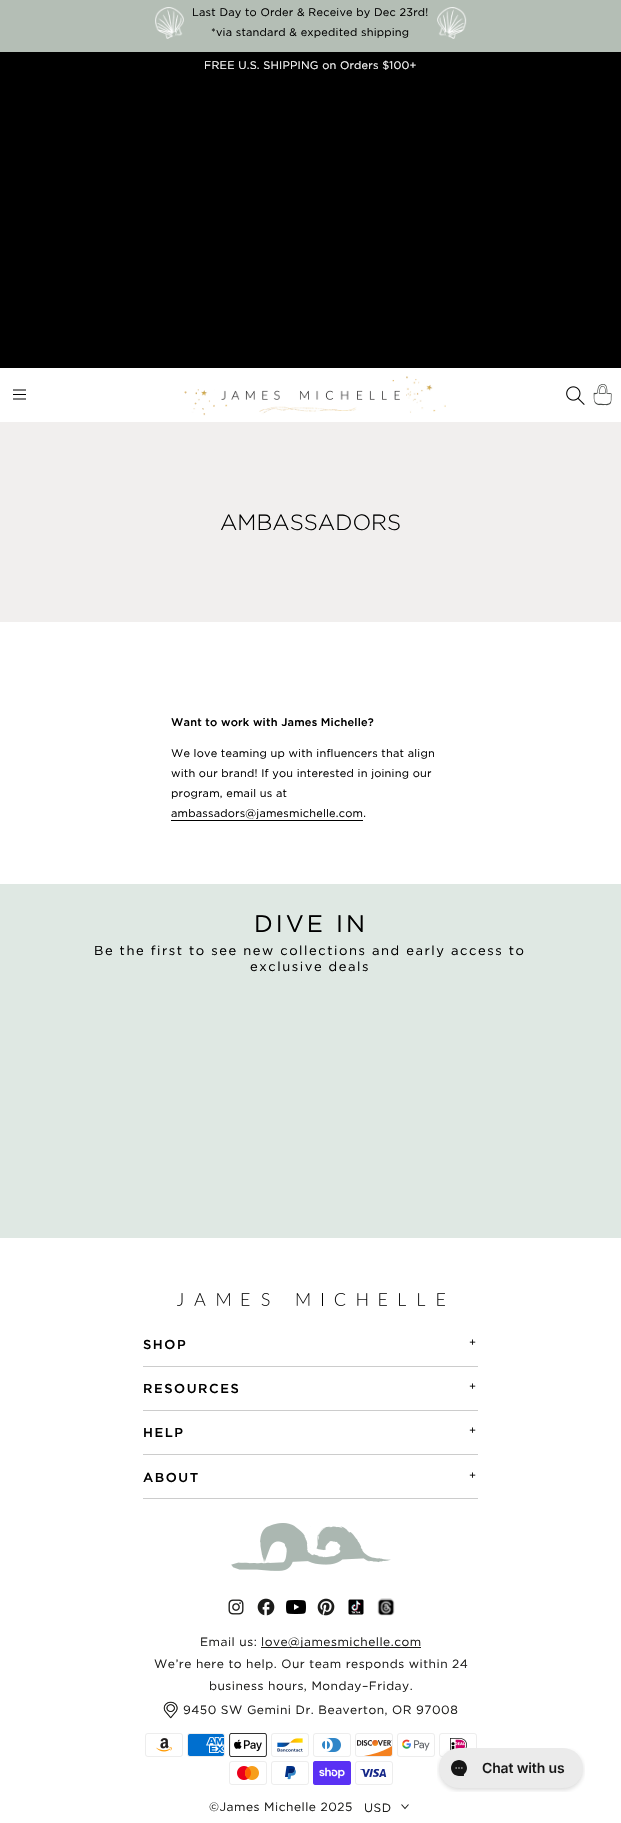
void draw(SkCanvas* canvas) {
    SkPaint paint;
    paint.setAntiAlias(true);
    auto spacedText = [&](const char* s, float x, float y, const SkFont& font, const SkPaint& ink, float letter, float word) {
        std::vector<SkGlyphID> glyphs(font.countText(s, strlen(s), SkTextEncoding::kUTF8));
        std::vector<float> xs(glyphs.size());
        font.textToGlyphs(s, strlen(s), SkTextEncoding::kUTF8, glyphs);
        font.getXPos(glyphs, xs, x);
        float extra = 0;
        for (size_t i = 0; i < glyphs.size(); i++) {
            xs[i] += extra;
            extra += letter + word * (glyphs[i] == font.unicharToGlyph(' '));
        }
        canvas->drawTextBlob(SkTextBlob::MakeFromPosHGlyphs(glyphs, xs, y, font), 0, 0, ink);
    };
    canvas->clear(0xFFFFFFFF);
    paint.setColor(0xFFB4BEB5);
    canvas->drawRect(SkRect::MakeXYWH(0, 0, 621, 52), paint);
    canvas->drawImageRect(SkImages::DeferredFromEncodedData(SkData::MakeFromFileName("img1.png")), SkRect::MakeXYWH(155, 7, 29, 32), SkSamplingOptions());
    SkFont font1(fontMgr->matchFamilyStyle("Gotham", SkFontStyle::Normal()), 11);
    font1.setSubpixel(true);
    paint.setColor(0xFF000000);
    spacedText("Last Day to Order & Receive by Dec 23rd!", 192, 16, font1, paint, 0.2f, 0);
    spacedText("*via standard & expedited shipping", 211, 36, font1, paint, 0.2f, 0);
    canvas->drawImageRect(SkImages::DeferredFromEncodedData(SkData::MakeFromFileName("img2.png")), SkRect::MakeXYWH(437, 7, 30, 32), SkSamplingOptions());
    canvas->drawRect(SkRect::MakeXYWH(0, 52, 621, 316), paint);
    paint.setColor(0xFFFFFFFF);
    spacedText("FREE U.S. SHIPPING on Orders $100+", 204, 69, font1, paint, 0.2f, 0);
    canvas->drawImageRect(SkImages::DeferredFromEncodedData(SkData::MakeFromFileName("img3.png")), SkRect::MakeXYWH(13, 389, 13, 11), SkSamplingOptions());
    canvas->drawImageRect(SkImages::DeferredFromEncodedData(SkData::MakeFromFileName("img4.png")), SkRect::MakeXYWH(184, 376, 262, 40), SkSamplingOptions());
    canvas->drawImageRect(SkImages::DeferredFromEncodedData(SkData::MakeFromFileName("img5.png")), SkRect::MakeXYWH(566, 386, 19, 19), SkSamplingOptions());
    canvas->drawImageRect(SkImages::DeferredFromEncodedData(SkData::MakeFromFileName("img6.png")), SkRect::MakeXYWH(593, 384, 19, 22), SkSamplingOptions());
    paint.setColor(0xFFF1EFEE);
    canvas->drawRect(SkRect::MakeXYWH(0, 422, 621, 200), paint);
    SkFont font2(fontMgr->matchFamilyStyle("Gotham", SkFontStyle(300, SkFontStyle::kNormal_Width, SkFontStyle::kUpright_Slant)), 22);
    font2.setSubpixel(true);
    paint.setColor(0xFF000000);
    canvas->drawString("AMBASSADORS", 220, 530, font2, paint);
    SkFont font3(fontMgr->matchFamilyStyle("Gotham", SkFontStyle(500, SkFontStyle::kNormal_Width, SkFontStyle::kUpright_Slant)), 11);
    font3.setSubpixel(true);
    spacedText("Want to work with James Michelle?", 171, 726, font3, paint, 0.2f, 0);
    spacedText("We love teaming up with influencers that align", 171, 757, font1, paint, 0.2f, 0);
    spacedText("with our brand! If you interested in joining our", 171, 777, font1, paint, 0.2f, 0);
    spacedText("program, email us at", 171, 797, font1, paint, 0.2f, 0);
    spacedText("ambassadors@jamesmichelle.com.", 171, 817, font1, paint, 0.2f, 0);
    canvas->drawRect(SkRect::MakeXYWH(171, 820, 192, 1), paint);
    paint.setColor(0xFFDFE8E3);
    canvas->drawRect(SkRect::MakeXYWH(0, 884, 621, 354), paint);
    SkFont font4(fontMgr->matchFamilyStyle("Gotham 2", SkFontStyle::Normal()), 24);
    font4.setSubpixel(true);
    paint.setColor(0xFF000000);
    spacedText("DIVE IN", 254, 932, font4, paint, 3, 0);
    SkFont font5(fontMgr->matchFamilyStyle("Gotham 2", SkFontStyle::Normal()), 13);
    font5.setSubpixel(true);
    spacedText("Be the first to see new collections and early access to", 94, 955, font5, paint, 1.55f, 0);
    spacedText("exclusive deals", 250, 971, font5, paint, 1.55f, 0);
    canvas->drawImageRect(SkImages::DeferredFromEncodedData(SkData::MakeFromFileName("img7.png")), SkRect::MakeXYWH(177, 1293, 268, 13), SkSamplingOptions());
    paint.setColor(0xFFCCCCCC);
    canvas->drawRect(SkRect::MakeXYWH(143, 1366, 335, 1), paint);
    SkFont font6(fontMgr->matchFamilyStyle("Gotham 2", SkFontStyle(500, SkFontStyle::kNormal_Width, SkFontStyle::kUpright_Slant)), 13);
    font6.setSubpixel(true);
    paint.setColor(0xFF000000);
    spacedText("SHOP", 143, 1349, font6, paint, 1.55f, 0);
    SkFont font7(fontMgr->matchFamilyStyle("Gotham 2", SkFontStyle::Normal()), 11);
    font7.setSubpixel(true);
    spacedText("+", 469, 1346, font7, paint, 1.55f, 0);
    paint.setColor(0xFFCCCCCC);
    canvas->drawRect(SkRect::MakeXYWH(143, 1410, 335, 1), paint);
    paint.setColor(0xFF000000);
    spacedText("RESOURCES", 143, 1393, font6, paint, 1.55f, 0);
    spacedText("+", 469, 1390, font7, paint, 1.55f, 0);
    paint.setColor(0xFFCCCCCC);
    canvas->drawRect(SkRect::MakeXYWH(143, 1454, 335, 1), paint);
    paint.setColor(0xFF000000);
    spacedText("HELP", 143, 1437, font6, paint, 1.55f, 0);
    spacedText("+", 469, 1434, font7, paint, 1.55f, 0);
    paint.setColor(0xFFCCCCCC);
    canvas->drawRect(SkRect::MakeXYWH(143, 1498, 335, 1), paint);
    paint.setColor(0xFF000000);
    spacedText("ABOUT", 143, 1482, font6, paint, 1.55f, 0);
    spacedText("+", 469, 1479, font7, paint, 1.55f, 0);
    canvas->drawImageRect(SkImages::DeferredFromEncodedData(SkData::MakeFromFileName("img8.png")), SkRect::MakeXYWH(231, 1523, 160, 48), SkSamplingOptions());
    canvas->drawImageRect(SkImages::DeferredFromEncodedData(SkData::MakeFromFileName("img9.png")), SkRect::MakeXYWH(228, 1599, 16, 16), SkSamplingOptions());
    canvas->drawImageRect(SkImages::DeferredFromEncodedData(SkData::MakeFromFileName("img10.png")), SkRect::MakeXYWH(257, 1598, 18, 18), SkSamplingOptions());
    canvas->drawImageRect(SkImages::DeferredFromEncodedData(SkData::MakeFromFileName("img11.png")), SkRect::MakeXYWH(286, 1600, 20, 14), SkSamplingOptions());
    canvas->drawImageRect(SkImages::DeferredFromEncodedData(SkData::MakeFromFileName("img12.png")), SkRect::MakeXYWH(317, 1598, 18, 18), SkSamplingOptions());
    canvas->drawImageRect(SkImages::DeferredFromEncodedData(SkData::MakeFromFileName("img13.png")), SkRect::MakeXYWH(348, 1599, 16, 16), SkSamplingOptions());
    canvas->drawImageRect(SkImages::DeferredFromEncodedData(SkData::MakeFromFileName("img14.png")), SkRect::MakeXYWH(377, 1598, 18, 18), SkSamplingOptions());
    SkFont font8(fontMgr->matchFamilyStyle("Gotham 2", SkFontStyle::Normal()), 12);
    font8.setSubpixel(true);
    paint.setColor(0xFF1D1D1B);
    spacedText("Email us:", 200, 1646, font8, paint, 0.5f, 0);
    canvas->drawRect(SkRect::MakeXYWH(261, 1647, 160, 1), paint);
    spacedText("love@jamesmichelle.com", 261, 1646, font8, paint, 0.5f, 0);
    spacedText("We’re here to help. Our team responds within 24", 154, 1668, font8, paint, 0.5f, 0);
    spacedText("business hours, Monday–Friday.", 209, 1690, font8, paint, 0.5f, 0);
    canvas->drawImageRect(SkImages::DeferredFromEncodedData(SkData::MakeFromFileName("img15.png")), SkRect::MakeXYWH(163, 1701, 15, 18), SkSamplingOptions());
    spacedText("9450 SW Gemini Dr. Beaverton, OR 97008", 183, 1714, font8, paint, 0.5f, 0);
    canvas->drawImageRect(SkImages::DeferredFromEncodedData(SkData::MakeFromFileName("img16.png")), SkRect::MakeXYWH(145, 1733, 38, 24), SkSamplingOptions());
    canvas->drawImageRect(SkImages::DeferredFromEncodedData(SkData::MakeFromFileName("img17.png")), SkRect::MakeXYWH(187, 1733, 38, 24), SkSamplingOptions());
    canvas->drawImageRect(SkImages::DeferredFromEncodedData(SkData::MakeFromFileName("img18.png")), SkRect::MakeXYWH(229, 1733, 38, 24), SkSamplingOptions());
    canvas->drawImageRect(SkImages::DeferredFromEncodedData(SkData::MakeFromFileName("img19.png")), SkRect::MakeXYWH(271, 1733, 38, 24), SkSamplingOptions());
    canvas->drawImageRect(SkImages::DeferredFromEncodedData(SkData::MakeFromFileName("img20.png")), SkRect::MakeXYWH(313, 1733, 38, 24), SkSamplingOptions());
    canvas->drawImageRect(SkImages::DeferredFromEncodedData(SkData::MakeFromFileName("img21.png")), SkRect::MakeXYWH(355, 1733, 38, 24), SkSamplingOptions());
    canvas->drawImageRect(SkImages::DeferredFromEncodedData(SkData::MakeFromFileName("img22.png")), SkRect::MakeXYWH(397, 1733, 38, 24), SkSamplingOptions());
    canvas->drawImageRect(SkImages::DeferredFromEncodedData(SkData::MakeFromFileName("img23.png")), SkRect::MakeXYWH(439, 1733, 38, 24), SkSamplingOptions());
    canvas->drawImageRect(SkImages::DeferredFromEncodedData(SkData::MakeFromFileName("img24.png")), SkRect::MakeXYWH(229, 1761, 38, 24), SkSamplingOptions());
    canvas->drawImageRect(SkImages::DeferredFromEncodedData(SkData::MakeFromFileName("img25.png")), SkRect::MakeXYWH(271, 1761, 38, 24), SkSamplingOptions());
    canvas->drawImageRect(SkImages::DeferredFromEncodedData(SkData::MakeFromFileName("img26.png")), SkRect::MakeXYWH(313, 1761, 38, 24), SkSamplingOptions());
    canvas->drawImageRect(SkImages::DeferredFromEncodedData(SkData::MakeFromFileName("img27.png")), SkRect::MakeXYWH(355, 1761, 38, 24), SkSamplingOptions());
    spacedText("©James Michelle 2025", 209, 1811, font8, paint, 0.5f, 0);
    spacedText("USD", 364, 1812, font8, paint, 0.5f, 0);
    paint.setStyle(SkPaint::kStroke_Style);
    paint.setStrokeWidth(1.1f);
    canvas->drawPath(SkPathBuilder().moveTo(401.5f, 1804.5f).lineTo(405, 1808.5f).lineTo(408.5f, 1804.5f).detach(), paint);
    canvas->drawImageRect(SkImages::DeferredFromEncodedData(SkData::MakeFromFileName("img28.png")), SkRect::MakeXYWH(437, 1748, 148, 44), SkSamplingOptions());
}
